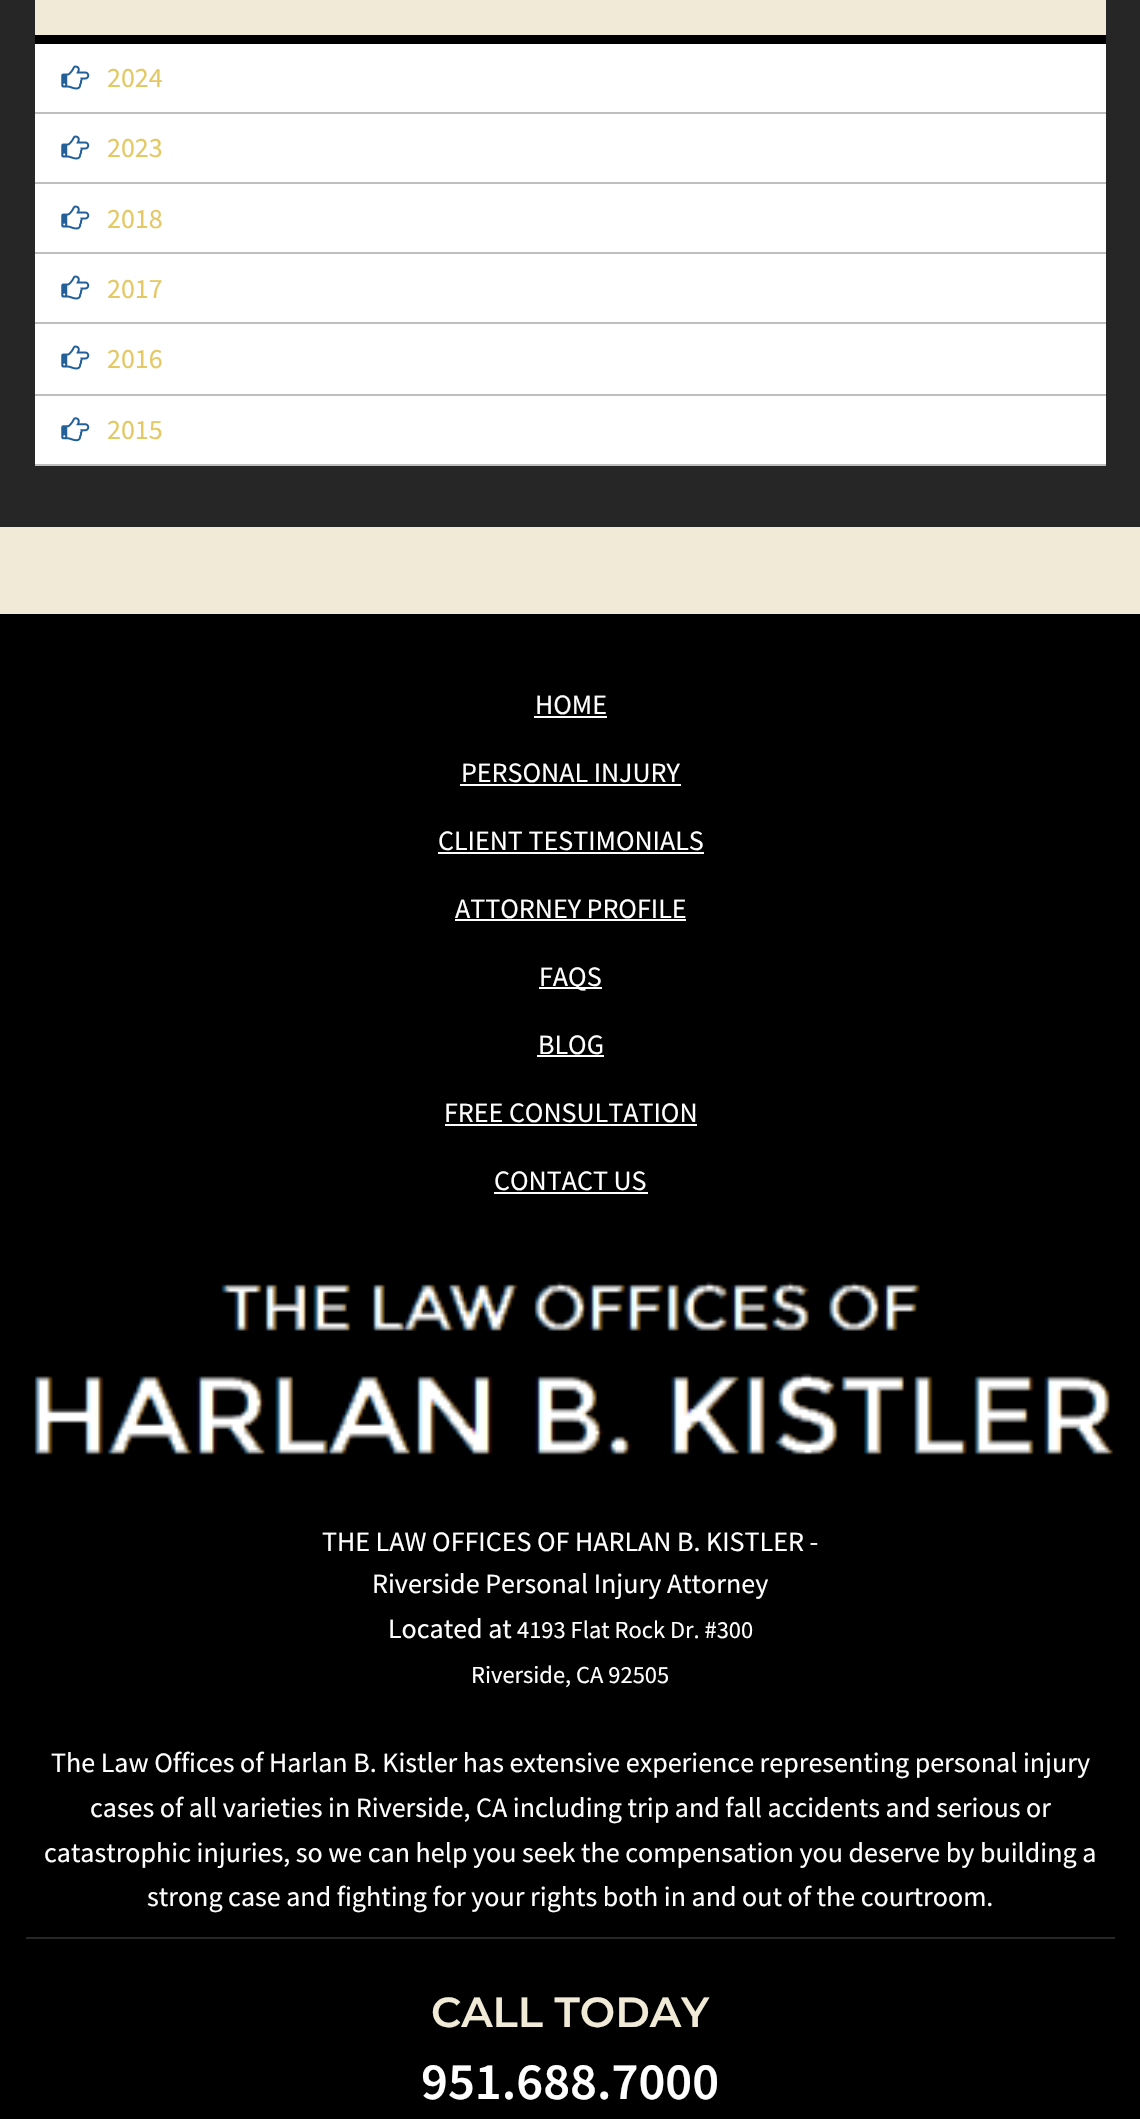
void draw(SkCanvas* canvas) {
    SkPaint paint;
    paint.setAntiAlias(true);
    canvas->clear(0xFF262626);
    paint.setColor(0xFFF0EAD6);
    canvas->drawRect(SkRect::MakeXYWH(35, 0, 1071, 35), paint);
    paint.setColor(0xFF000000);
    canvas->drawRect(SkRect::MakeXYWH(35, 35, 1071, 9), paint);
    paint.setColor(0xFFFFFFFF);
    canvas->drawRect(SkRect::MakeXYWH(35, 44, 1071, 68), paint);
    paint.setColor(0xFFBEBEBE);
    canvas->drawRect(SkRect::MakeXYWH(35, 112, 1071, 2), paint);
    canvas->drawImageRect(SkImages::DeferredFromEncodedData(SkData::MakeFromFileName("img1.png")), SkRect::MakeXYWH(61, 65, 29, 25), SkSamplingOptions());
    SkFont font1(fontMgr->matchFamilyStyle("Source Sans Pro", SkFontStyle::Normal()), 28);
    font1.setSubpixel(true);
    paint.setColor(0xFFE4C864);
    canvas->drawString("2024", 107, 87, font1, paint);
    paint.setColor(0xFFFFFFFF);
    canvas->drawRect(SkRect::MakeXYWH(35, 114, 1071, 68), paint);
    paint.setColor(0xFFBEBEBE);
    canvas->drawRect(SkRect::MakeXYWH(35, 182, 1071, 2), paint);
    canvas->drawImageRect(SkImages::DeferredFromEncodedData(SkData::MakeFromFileName("img1.png")), SkRect::MakeXYWH(61, 135, 29, 25), SkSamplingOptions());
    paint.setColor(0xFFE4C864);
    canvas->drawString("2023", 107, 157, font1, paint);
    paint.setColor(0xFFFFFFFF);
    canvas->drawRect(SkRect::MakeXYWH(35, 184, 1071, 68), paint);
    paint.setColor(0xFFBEBEBE);
    canvas->drawRect(SkRect::MakeXYWH(35, 252, 1071, 2), paint);
    canvas->drawImageRect(SkImages::DeferredFromEncodedData(SkData::MakeFromFileName("img1.png")), SkRect::MakeXYWH(61, 205, 29, 25), SkSamplingOptions());
    paint.setColor(0xFFE4C864);
    canvas->drawString("2018", 107, 228, font1, paint);
    paint.setColor(0xFFFFFFFF);
    canvas->drawRect(SkRect::MakeXYWH(35, 254, 1071, 68), paint);
    paint.setColor(0xFFBEBEBE);
    canvas->drawRect(SkRect::MakeXYWH(35, 322, 1071, 2), paint);
    canvas->drawImageRect(SkImages::DeferredFromEncodedData(SkData::MakeFromFileName("img1.png")), SkRect::MakeXYWH(61, 275, 29, 25), SkSamplingOptions());
    paint.setColor(0xFFE4C864);
    canvas->drawString("2017", 107, 298, font1, paint);
    paint.setColor(0xFFFFFFFF);
    canvas->drawRect(SkRect::MakeXYWH(35, 324, 1071, 70), paint);
    paint.setColor(0xFFBEBEBE);
    canvas->drawRect(SkRect::MakeXYWH(35, 394, 1071, 2), paint);
    canvas->drawImageRect(SkImages::DeferredFromEncodedData(SkData::MakeFromFileName("img1.png")), SkRect::MakeXYWH(61, 345, 29, 25), SkSamplingOptions());
    paint.setColor(0xFFE4C864);
    canvas->drawString("2016", 107, 368, font1, paint);
    paint.setColor(0xFFFFFFFF);
    canvas->drawRect(SkRect::MakeXYWH(35, 396, 1071, 68), paint);
    paint.setColor(0xFFBEBEBE);
    canvas->drawRect(SkRect::MakeXYWH(35, 464, 1071, 2), paint);
    canvas->drawImageRect(SkImages::DeferredFromEncodedData(SkData::MakeFromFileName("img2.png")), SkRect::MakeXYWH(61, 417, 29, 25), SkSamplingOptions());
    paint.setColor(0xFFE4C864);
    canvas->drawString("2015", 107, 439, font1, paint);
    paint.setColor(0xFF000000);
    canvas->drawRect(SkRect::MakeXYWH(0, 614, 1140, 1505), paint);
    paint.setColor(0xFFF0EAD6);
    canvas->drawRect(SkRect::MakeXYWH(0, 527, 1140, 87), paint);
    paint.setColor(0xFFFFFFFF);
    canvas->drawString("HOME", 535, 714, font1, paint);
    canvas->drawRect(SkRect::MakeXYWH(534, 716, 73, 2), paint);
    canvas->drawString("PERSONAL INJURY", 461, 782, font1, paint);
    canvas->drawRect(SkRect::MakeXYWH(460, 784, 221, 2), paint);
    canvas->drawString("CLIENT TESTIMONIALS", 438, 850, font1, paint);
    canvas->drawRect(SkRect::MakeXYWH(438, 852, 266, 2), paint);
    canvas->drawString("ATTORNEY PROFILE", 455, 918, font1, paint);
    canvas->drawRect(SkRect::MakeXYWH(455, 919, 231, 2), paint);
    canvas->drawRect(SkRect::MakeXYWH(539, 987, 63, 2), paint);
    canvas->drawString("FAQS", 539, 986, font1, paint);
    canvas->drawString("BLOG", 538, 1054, font1, paint);
    canvas->drawRect(SkRect::MakeXYWH(537, 1055, 67, 2), paint);
    canvas->drawString("FREE CONSULTATION", 444, 1122, font1, paint);
    canvas->drawRect(SkRect::MakeXYWH(445, 1124, 252, 2), paint);
    canvas->drawString("CONTACT US", 494, 1190, font1, paint);
    canvas->drawRect(SkRect::MakeXYWH(494, 1192, 154, 2), paint);
    paint.setColor(0xFF262626);
    canvas->drawRect(SkRect::MakeXYWH(26, 1937, 1089, 2), paint);
    canvas->drawImageRect(SkImages::DeferredFromEncodedData(SkData::MakeFromFileName("img3.png")), SkRect::MakeXYWH(34, 1281, 1079, 174), SkSamplingOptions());
    paint.setColor(0xFFFFFFFF);
    canvas->drawString("THE LAW OFFICES OF HARLAN B. KISTLER -", 322, 1551, font1, paint);
    canvas->drawString("Riverside Personal Injury Attorney", 372, 1593, font1, paint);
    canvas->drawString("Located at", 388, 1638, font1, paint);
    SkFont font2(fontMgr->matchFamilyStyle("Source Sans Pro", SkFontStyle::Normal()), 24.5f);
    font2.setSubpixel(true);
    canvas->drawString("4193 Flat Rock Dr. #300", 517, 1638, font2, paint);
    canvas->drawString("Riverside, CA 92505", 471, 1683, font2, paint);
    canvas->drawString("The Law Offices of Harlan B. Kistler has extensive experience representing personal injury", 51, 1772, font1, paint);
    canvas->drawString("cases of all varieties in Riverside, CA including trip and fall accidents and serious or", 90, 1817, font1, paint);
    canvas->drawString("catastrophic injuries, so we can help you seek the compensation you deserve by building a", 44, 1862, font1, paint);
    canvas->drawString("strong case and fighting for your rights both in and out of the courtroom.", 147, 1906, font1, paint);
    SkFont font3(fontMgr->matchFamilyStyle("Montserrat", SkFontStyle(600, SkFontStyle::kNormal_Width, SkFontStyle::kUpright_Slant)), 42);
    font3.setSubpixel(true);
    paint.setColor(0xFFF0EAD6);
    canvas->drawString("CALL TODAY", 431, 2027, font3, paint);
    SkFont font4(fontMgr->matchFamilyStyle("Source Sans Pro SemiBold", SkFontStyle(600, SkFontStyle::kNormal_Width, SkFontStyle::kUpright_Slant)), 52.5f);
    font4.setSubpixel(true);
    paint.setColor(0xFFFFFFFF);
    canvas->drawString("951.688.7000", 421, 2099, font4, paint);
}
